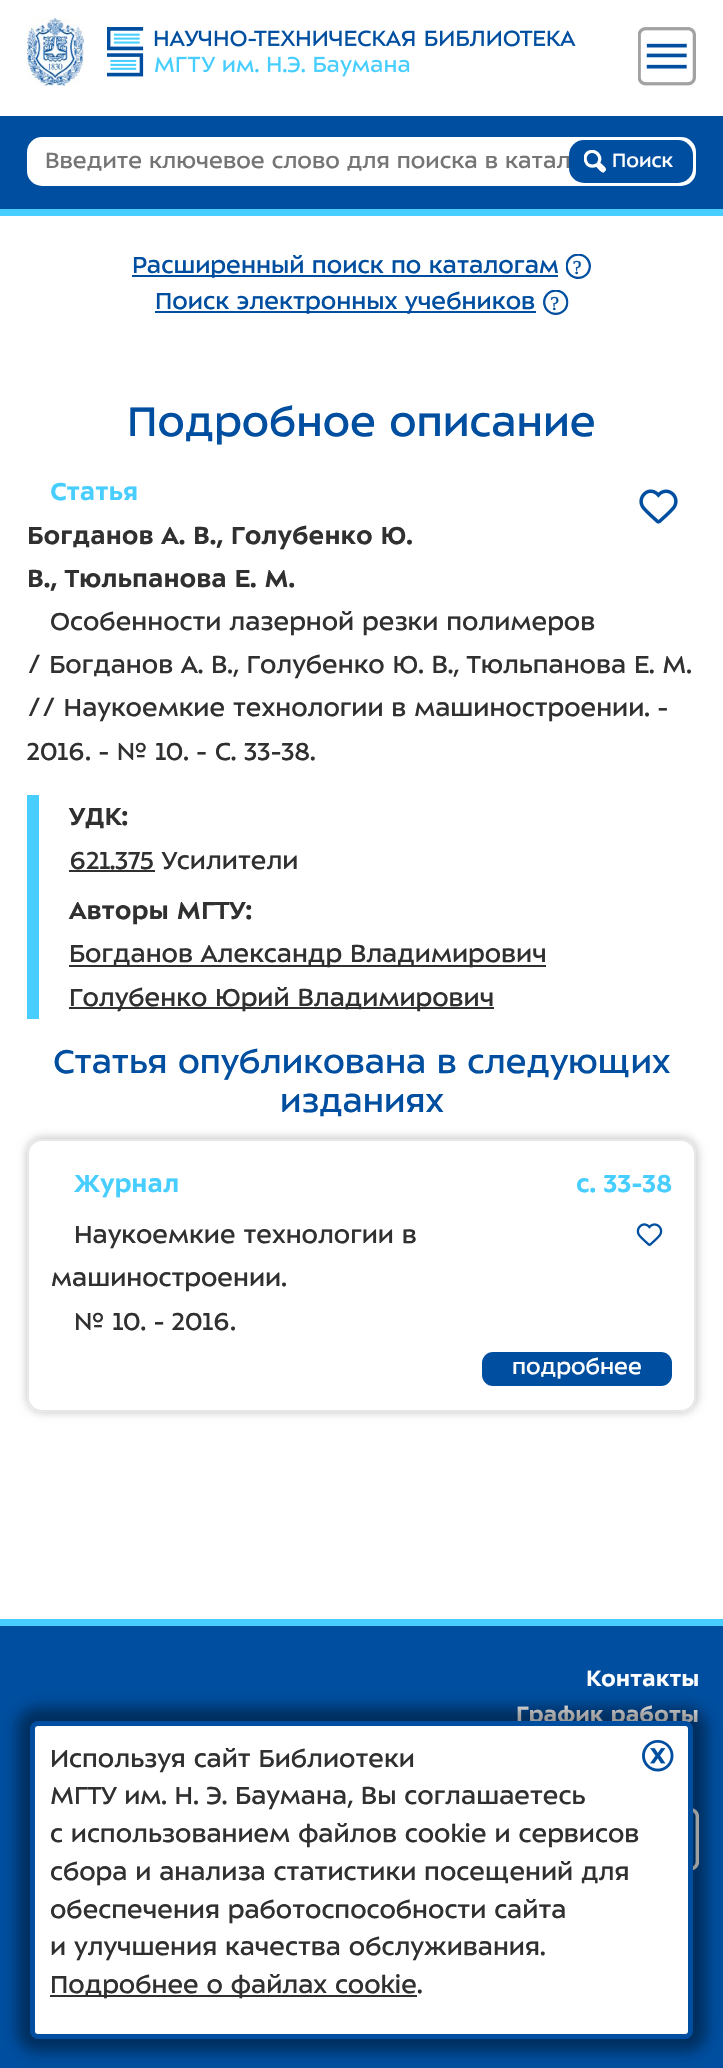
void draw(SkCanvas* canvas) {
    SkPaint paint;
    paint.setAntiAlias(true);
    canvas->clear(0xFFFFFFFF);
    canvas->drawImageRect(SkImages::DeferredFromEncodedData(SkData::MakeFromFileName("img1.png")), SkRect::MakeXYWH(27, 18, 57, 68), SkSamplingOptions());
    canvas->drawImageRect(SkImages::DeferredFromEncodedData(SkData::MakeFromFileName("img2.png")), SkRect::MakeXYWH(107, 27, 469, 50), SkSamplingOptions());
    canvas->drawImageRect(SkImages::DeferredFromEncodedData(SkData::MakeFromFileName("img3.png")), SkRect::MakeXYWH(638, 27, 58, 59), SkSamplingOptions());
    paint.setColor(0xFF004E9F);
    canvas->drawRect(SkRect::MakeXYWH(0, 116, 723, 93), paint);
    paint.setColor(0xFF47CEFF);
    canvas->drawRect(SkRect::MakeXYWH(0, 209, 723, 7), paint);
    paint.setColor(0xFFFFFFFF);
    canvas->drawRoundRect(SkRect::MakeXYWH(27, 137, 669, 49), 15, 15, paint);
    SkFont font1(fontMgr->matchFamilyStyle("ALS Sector", SkFontStyle::Normal()), 24);
    font1.setSubpixel(true);
    paint.setColor(0xFF757575);
    canvas->drawString("Введите ключевое слово для поиска в катал", 45, 168, font1, paint);
    paint.setColor(0xFF004E9F);
    canvas->drawRoundRect(SkRect::MakeXYWH(569, 140, 124, 43), 15, 15, paint);
    canvas->save();
    canvas->clipRect(SkRect::MakeXYWH(584, 150, 22, 23));
    paint.setStyle(SkPaint::kStroke_Style);
    paint.setStrokeWidth(3.2f);
    paint.setColor(0xFFFFFFFF);
    canvas->drawPath(SkPathBuilder().moveTo(591.5f, 151.5f).cubicTo(580.5f, 152.5f, 585, 171, 596.5f, 165).cubicTo(598, 166, 601, 170.5f, 603, 171).lineTo(604.5f, 169.5f).cubicTo(604.5f, 167.5f, 599.5f, 164.5f, 598.5f, 163).cubicTo(602, 157.5f, 597.5f, 152, 593, 151.5f).close().detach(), paint);
    canvas->restore();
    SkFont font2(fontMgr->matchFamilyStyle("ALS Sector", SkFontStyle::Normal()), 21);
    font2.setSubpixel(true);
    paint.setStyle(SkPaint::kFill_Style);
    canvas->drawString("Поиск", 612, 167, font2, paint);
    paint.setColor(0xFF004E9F);
    canvas->drawRect(SkRect::MakeXYWH(132, 275, 426, 2), paint);
    SkFont font3(fontMgr->matchFamilyStyle("ALS Sector", SkFontStyle::Normal()), 25.5f);
    font3.setSubpixel(true);
    canvas->drawString("Расширенный поиск по каталогам", 132, 273, font3, paint);
    canvas->drawImageRect(SkImages::DeferredFromEncodedData(SkData::MakeFromFileName("img4.png")), SkRect::MakeXYWH(566, 254, 25, 25), SkSamplingOptions());
    canvas->drawRect(SkRect::MakeXYWH(155, 311, 381, 2), paint);
    canvas->drawString("Поиск электронных учебников", 155, 309, font3, paint);
    canvas->drawImageRect(SkImages::DeferredFromEncodedData(SkData::MakeFromFileName("img5.png")), SkRect::MakeXYWH(543, 290, 26, 25), SkSamplingOptions());
    SkFont font4(fontMgr->matchFamilyStyle("ALS Sector", SkFontStyle::Normal()), 45);
    font4.setSubpixel(true);
    canvas->drawString("Подробное описание", 127, 436, font4, paint);
    SkFont font5(fontMgr->matchFamilyStyle("ALS Sector", SkFontStyle::Bold()), 27);
    font5.setSubpixel(true);
    paint.setColor(0xFF47CEFF);
    canvas->drawString("Статья", 50, 500, font5, paint);
    canvas->drawImageRect(SkImages::DeferredFromEncodedData(SkData::MakeFromFileName("img6.png")), SkRect::MakeXYWH(639, 489, 39, 35), SkSamplingOptions());
    paint.setColor(0xFF303030);
    canvas->drawString("Богданов А. В., Голубенко Ю.", 27, 544, font5, paint);
    canvas->drawString("В., Тюльпанова Е. М.", 27, 587, font5, paint);
    SkFont font6(fontMgr->matchFamilyStyle("ALS Sector", SkFontStyle::Normal()), 27);
    font6.setSubpixel(true);
    canvas->drawString("Особенности лазерной резки полимеров", 50, 630, font6, paint);
    canvas->drawString("/ Богданов А. В., Голубенко Ю. В., Тюльпанова Е. М.", 27, 673, font6, paint);
    canvas->drawString("// Наукоемкие технологии в машиностроении. -", 27, 716, font6, paint);
    canvas->drawString("2016. - № 10. - С. 33-38.", 27, 760, font6, paint);
    paint.setColor(0xFF47CEFF);
    canvas->drawRect(SkRect::MakeXYWH(27, 795, 12, 224), paint);
    paint.setColor(0xFF303030);
    canvas->drawString("УДК:", 69, 825, font5, paint);
    canvas->drawString("621.375 Усилители", 69, 869, font6, paint);
    canvas->drawRect(SkRect::MakeXYWH(69, 870, 86, 2), paint);
    canvas->drawString("Авторы МГТУ:", 69, 919, font5, paint);
    canvas->drawRect(SkRect::MakeXYWH(69, 965, 477, 2), paint);
    canvas->drawString("Богданов Александр Владимирович", 69, 962, font6, paint);
    canvas->drawRect(SkRect::MakeXYWH(69, 1007, 425, 2), paint);
    canvas->drawString("Голубенко Юрий Владимирович", 69, 1006, font6, paint);
    SkFont font7(fontMgr->matchFamilyStyle("ALS Sector", SkFontStyle::Normal()), 36);
    font7.setSubpixel(true);
    paint.setColor(0xFF004E9F);
    canvas->drawString("Статья опубликована в следующих", 53, 1073, font7, paint);
    canvas->drawString("изданиях", 280, 1112, font7, paint);
    canvas->save();
    canvas->clipPath(SkPathBuilder(SkPathFillType::kEvenOdd).moveTo(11, 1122).lineTo(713, 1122).lineTo(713, 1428).lineTo(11, 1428).close().moveTo(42, 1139).lineTo(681, 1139).cubicTo(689.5f, 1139, 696, 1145.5f, 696, 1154).lineTo(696, 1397).cubicTo(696, 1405.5f, 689.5f, 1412, 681, 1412).lineTo(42, 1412).cubicTo(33.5f, 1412, 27, 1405.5f, 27, 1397).lineTo(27, 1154).cubicTo(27, 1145.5f, 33.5f, 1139, 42, 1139).close().detach(), true);
    paint.setColor(0x33000000);
    paint.setMaskFilter(SkMaskFilter::MakeBlur(kNormal_SkBlurStyle, 4.5f));
    canvas->drawRoundRect(SkRect::MakeXYWH(26, 1137, 672, 276), 17, 17, paint);
    paint.setMaskFilter(nullptr);
    canvas->restore();
    paint.setStyle(SkPaint::kStroke_Style);
    paint.setStrokeWidth(2);
    paint.setColor(0xFFE7E7E7);
    canvas->drawRoundRect(SkRect::MakeXYWH(28, 1140, 667, 271), 14, 14, paint);
    paint.setStyle(SkPaint::kFill_Style);
    paint.setColor(0xFF47CEFF);
    canvas->drawString("Журнал", 74, 1192, font5, paint);
    canvas->drawString("с. 33-38", 576, 1192, font5, paint);
    paint.setColor(0xFF303030);
    canvas->drawString("Наукоемкие технологии в", 74, 1243, font6, paint);
    canvas->drawString("машиностроении.", 51, 1286, font6, paint);
    canvas->drawString("№ 10. - 2016.", 74, 1330, font6, paint);
    canvas->drawImageRect(SkImages::DeferredFromEncodedData(SkData::MakeFromFileName("img7.png")), SkRect::MakeXYWH(636, 1223, 27, 24), SkSamplingOptions());
    paint.setColor(0xFF004E9F);
    canvas->drawRoundRect(SkRect::MakeXYWH(482, 1352, 190, 34), 11, 11, paint);
    paint.setColor(0xFFFFFFFF);
    canvas->drawString("подробнее", 512, 1374, font1, paint);
    paint.setColor(0xFF004E9F);
    canvas->drawRect(SkRect::MakeXYWH(0, 1626, 723, 442), paint);
    paint.setColor(0xFF47CEFF);
    canvas->drawRect(SkRect::MakeXYWH(0, 1619, 723, 7), paint);
    SkFont font8(fontMgr->matchFamilyStyle("ALS Sector", SkFontStyle::Bold()), 24);
    font8.setSubpixel(true);
    paint.setColor(0xFFFFFFFF);
    canvas->drawString("Контакты", 586, 1686, font8, paint);
    canvas->drawString("График работы", 516, 1722, font8, paint);
    canvas->drawImageRect(SkImages::DeferredFromEncodedData(SkData::MakeFromFileName("img8.png")), SkRect::MakeXYWH(693, 1808, 6, 62), SkSamplingOptions());
    paint.setColor(0x66000000);
    paint.setMaskFilter(SkMaskFilter::MakeBlur(kNormal_SkBlurStyle, 7));
    canvas->drawRoundRect(SkRect::MakeXYWH(17, 1707, 690, 345), 21, 21, paint);
    paint.setMaskFilter(nullptr);
    paint.setColor(0xFFFFFFFF);
    canvas->drawRoundRect(SkRect::MakeXYWH(32.5f, 1723.5f, 658, 313), 5.5f, 5.5f, paint);
    paint.setStyle(SkPaint::kStroke_Style);
    paint.setStrokeWidth(5);
    paint.setColor(0xFF004E9F);
    canvas->drawRoundRect(SkRect::MakeXYWH(32.5f, 1723.5f, 658, 313), 5.5f, 5.5f, paint);
    paint.setStyle(SkPaint::kFill_Style);
    paint.setColor(0xFF303030);
    canvas->drawString("Используя сайт Библиотеки", 50, 1767, font6, paint);
    canvas->drawString("МГТУ им. Н. Э. Баумана, Вы соглашаетесь", 50, 1804, font6, paint);
    canvas->drawString("с использованием файлов cookie и сервисов", 50, 1842, font6, paint);
    canvas->drawString("сбора и анализа статистики посещений для", 50, 1880, font6, paint);
    canvas->drawString("обеспечения работоспособности сайта", 50, 1918, font6, paint);
    canvas->drawString("и улучшения качества обслуживания.", 50, 1955, font6, paint);
    canvas->drawRect(SkRect::MakeXYWH(50, 1995, 367, 2), paint);
    canvas->drawString("Подробнее о файлах cookie.", 50, 1993, font6, paint);
    canvas->drawImageRect(SkImages::DeferredFromEncodedData(SkData::MakeFromFileName("img9.png")), SkRect::MakeXYWH(642, 1740, 32, 32), SkSamplingOptions());
}
